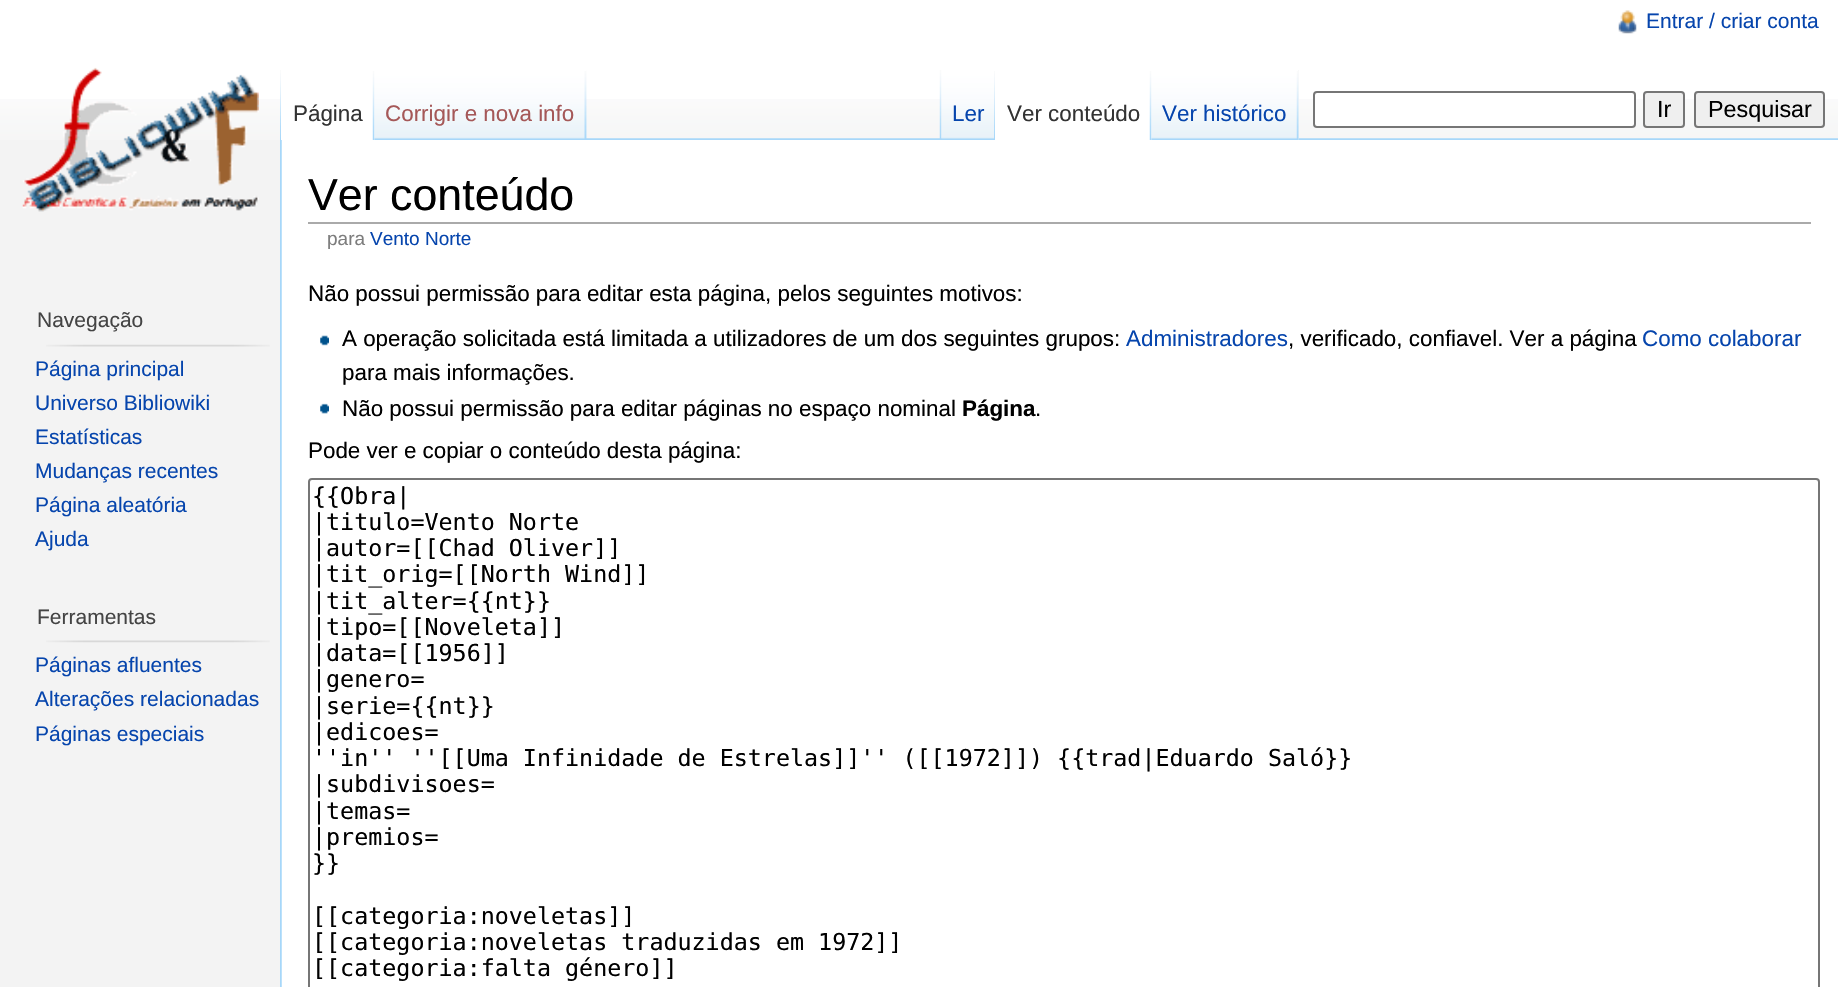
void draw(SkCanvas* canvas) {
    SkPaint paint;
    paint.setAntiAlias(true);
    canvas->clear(0xFFF3F3F3);
    paint.setColor(0xFFFFFFFF);
    canvas->drawRect(SkRect::MakeXYWH(0, 0, 1838, 99), paint);
    canvas->drawImageRect(SkImages::DeferredFromEncodedData(SkData::MakeFromFileName("img1.png")), SkRect::MakeXYWH(0, 99, 1838, 41), SkSamplingOptions());
    canvas->drawImageRect(SkImages::DeferredFromEncodedData(SkData::MakeFromFileName("img2.png")), SkRect::MakeXYWH(1618, 10, 19, 24), SkSamplingOptions());
    SkFont font1(fontMgr->matchFamilyStyle("Liberation Sans", SkFontStyle::Normal()), 21);
    font1.setSubpixel(true);
    paint.setColor(0xFF0645AD);
    canvas->drawString("Entrar / criar conta", 1646, 28, font1, paint);
    canvas->drawImageRect(SkImages::DeferredFromEncodedData(SkData::MakeFromFileName("img13.png")), SkRect::MakeXYWH(280, 138, 1558, 2), SkSamplingOptions());
    canvas->drawImageRect(SkImages::DeferredFromEncodedData(SkData::MakeFromFileName("img3.png")), SkRect::MakeXYWH(280, 70, 1, 69), SkSamplingOptions());
    canvas->drawImageRect(SkImages::DeferredFromEncodedData(SkData::MakeFromFileName("img4.png")), SkRect::MakeXYWH(586, 70, 1, 69), SkSamplingOptions());
    paint.setColor(0xFFFFFFFF);
    canvas->drawRect(SkRect::MakeXYWH(281, 99, 94, 41), paint);
    canvas->drawImageRect(SkImages::DeferredFromEncodedData(SkData::MakeFromFileName("img5.png")), SkRect::MakeXYWH(372, 71, 3, 69), SkSamplingOptions());
    SkFont font2(fontMgr->matchFamilyStyle("Liberation Sans", SkFontStyle::Normal()), 22.4f);
    font2.setSubpixel(true);
    paint.setColor(0xFF333333);
    canvas->drawString("Página", 293, 121, font2, paint);
    canvas->drawImageRect(SkImages::DeferredFromEncodedData(SkData::MakeFromFileName("img6.png")), SkRect::MakeXYWH(374, 70, 212, 70), SkSamplingOptions());
    canvas->drawImageRect(SkImages::DeferredFromEncodedData(SkData::MakeFromFileName("img7.png")), SkRect::MakeXYWH(584, 71, 3, 68), SkSamplingOptions());
    paint.setColor(0xFFA55858);
    canvas->drawString("Corrigir e nova info", 385, 121, font2, paint);
    canvas->drawImageRect(SkImages::DeferredFromEncodedData(SkData::MakeFromFileName("img8.png")), SkRect::MakeXYWH(939, 70, 3, 69), SkSamplingOptions());
    canvas->drawImageRect(SkImages::DeferredFromEncodedData(SkData::MakeFromFileName("img9.png")), SkRect::MakeXYWH(941, 70, 54, 70), SkSamplingOptions());
    canvas->drawImageRect(SkImages::DeferredFromEncodedData(SkData::MakeFromFileName("img10.png")), SkRect::MakeXYWH(994, 71, 1, 69), SkSamplingOptions());
    paint.setColor(0xFF0645AD);
    canvas->drawString("Ler", 952, 121, font2, paint);
    paint.setColor(0xFFFFFFFF);
    canvas->drawRect(SkRect::MakeXYWH(995, 99, 157, 41), paint);
    canvas->drawImageRect(SkImages::DeferredFromEncodedData(SkData::MakeFromFileName("img5.png")), SkRect::MakeXYWH(1149, 71, 3, 69), SkSamplingOptions());
    paint.setColor(0xFF333333);
    canvas->drawString("Ver conteúdo", 1007, 121, font2, paint);
    paint.setColor(0xFFF3F3F3);
    canvas->drawRect(SkRect::MakeXYWH(1298, 70, 1, 70), paint);
    canvas->drawImageRect(SkImages::DeferredFromEncodedData(SkData::MakeFromFileName("img11.png")), SkRect::MakeXYWH(1151, 70, 148, 70), SkSamplingOptions());
    canvas->drawImageRect(SkImages::DeferredFromEncodedData(SkData::MakeFromFileName("img12.png")), SkRect::MakeXYWH(1296, 71, 3, 69), SkSamplingOptions());
    paint.setColor(0xFF0645AD);
    canvas->drawString("Ver histórico", 1162, 121, font2, paint);
    paint.setColor(0xFFFFFFFF);
    canvas->drawRoundRect(SkRect::MakeXYWH(1314, 92, 321, 35), 3, 3, paint);
    paint.setStyle(SkPaint::kStroke_Style);
    paint.setStrokeWidth(2);
    paint.setColor(0xFF767676);
    canvas->drawRoundRect(SkRect::MakeXYWH(1314, 92, 321, 35), 3, 3, paint);
    paint.setStyle(SkPaint::kFill_Style);
    paint.setColor(0xFFEFEFEF);
    canvas->drawRoundRect(SkRect::MakeXYWH(1644, 92, 40, 35), 3, 3, paint);
    paint.setStyle(SkPaint::kStroke_Style);
    paint.setColor(0xFF767676);
    canvas->drawRoundRect(SkRect::MakeXYWH(1644, 92, 40, 35), 3, 3, paint);
    SkFont font3(fontMgr->matchFamilyStyle("Liberation Sans", SkFontStyle::Normal()), 23.35f);
    font3.setSubpixel(true);
    paint.setStyle(SkPaint::kFill_Style);
    paint.setColor(0xFF000000);
    canvas->drawString("Ir", 1657, 117, font3, paint);
    paint.setColor(0xFFEFEFEF);
    canvas->drawRoundRect(SkRect::MakeXYWH(1695, 92, 129, 35), 3, 3, paint);
    paint.setStyle(SkPaint::kStroke_Style);
    paint.setColor(0xFF767676);
    canvas->drawRoundRect(SkRect::MakeXYWH(1695, 92, 129, 35), 3, 3, paint);
    paint.setStyle(SkPaint::kFill_Style);
    paint.setColor(0xFF000000);
    canvas->drawString("Pesquisar", 1708, 117, font3, paint);
    canvas->drawImageRect(SkImages::DeferredFromEncodedData(SkData::MakeFromFileName("img14.png")), SkRect::MakeXYWH(22, 67, 237, 145), SkSamplingOptions());
    paint.setColor(0xFF444444);
    canvas->drawString("Navegação", 37, 327, font1, paint);
    canvas->drawImageRect(SkImages::DeferredFromEncodedData(SkData::MakeFromFileName("img15.png")), SkRect::MakeXYWH(46, 344, 224, 3), SkSamplingOptions());
    paint.setColor(0xFF0645AD);
    canvas->drawString("Página principal", 35, 376, font1, paint);
    canvas->drawString("Universo Bibliowiki", 35, 410, font1, paint);
    canvas->drawString("Estatísticas", 35, 444, font1, paint);
    canvas->drawString("Mudanças recentes", 35, 478, font1, paint);
    canvas->drawString("Página aleatória", 35, 512, font1, paint);
    canvas->drawString("Ajuda", 35, 546, font1, paint);
    paint.setColor(0xFF444444);
    canvas->drawString("Ferramentas", 37, 624, font1, paint);
    canvas->drawImageRect(SkImages::DeferredFromEncodedData(SkData::MakeFromFileName("img16.png")), SkRect::MakeXYWH(46, 640, 224, 3), SkSamplingOptions());
    paint.setColor(0xFF0645AD);
    canvas->drawString("Páginas afluentes", 35, 672, font1, paint);
    canvas->drawString("Alterações relacionadas", 35, 706, font1, paint);
    canvas->drawString("Páginas especiais", 35, 741, font1, paint);
    paint.setColor(0xFFFFFFFF);
    canvas->drawRect(SkRect::MakeXYWH(281, 140, 1557, 847), paint);
    canvas->drawImageRect(SkImages::DeferredFromEncodedData(SkData::MakeFromFileName("img17.png")), SkRect::MakeXYWH(280, 140, 2, 847), SkSamplingOptions());
    paint.setColor(0xFFAAAAAA);
    canvas->drawRect(SkRect::MakeXYWH(308, 222, 1503, 2), paint);
    SkFont font4(fontMgr->matchFamilyStyle("Liberation Sans", SkFontStyle::Normal()), 44.75f);
    font4.setSubpixel(true);
    paint.setColor(0xFF000000);
    canvas->drawString("Ver conteúdo", 308, 210, font4, paint);
    SkFont font5(fontMgr->matchFamilyStyle("Liberation Sans", SkFontStyle::Normal()), 19);
    font5.setSubpixel(true);
    paint.setColor(0xFF7D7D7D);
    canvas->drawString("para", 327, 245, font5, paint);
    paint.setColor(0xFF0645AD);
    canvas->drawString("Vento Norte", 370, 245, font5, paint);
    paint.setColor(0xFF000000);
    canvas->drawString("Não possui permissão para editar esta página, pelos seguintes motivos:", 308, 301, font2, paint);
    canvas->drawImageRect(SkImages::DeferredFromEncodedData(SkData::MakeFromFileName("img18.png")), SkRect::MakeXYWH(320, 335, 9, 11), SkSamplingOptions());
    canvas->drawString("A operação solicitada está limitada a utilizadores de um dos seguintes grupos:", 342, 346, font2, paint);
    paint.setColor(0xFF0645AD);
    canvas->drawString("Administradores", 1126, 346, font2, paint);
    paint.setColor(0xFF000000);
    canvas->drawString(", verificado, confiavel. Ver a página", 1288, 346, font2, paint);
    paint.setColor(0xFF0645AD);
    canvas->drawString("Como colaborar", 1642, 346, font2, paint);
    paint.setColor(0xFF000000);
    canvas->drawString("para mais informações.", 342, 380, font2, paint);
    canvas->drawImageRect(SkImages::DeferredFromEncodedData(SkData::MakeFromFileName("img19.png")), SkRect::MakeXYWH(320, 403, 9, 11), SkSamplingOptions());
    canvas->drawString("Não possui permissão para editar páginas no espaço nominal", 342, 416, font2, paint);
    SkFont font6(fontMgr->matchFamilyStyle("Liberation Sans", SkFontStyle::Bold()), 22.4f);
    font6.setSubpixel(true);
    canvas->drawString("Página", 962, 416, font6, paint);
    canvas->drawString(".", 1035, 416, font2, paint);
    canvas->drawString("Pode ver e copiar o conteúdo desta página:", 308, 458, font2, paint);
    paint.setStyle(SkPaint::kStroke_Style);
    paint.setColor(0xFF767676);
    canvas->drawRoundRect(SkRect::MakeXYWH(309, 479, 1510, 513), 3, 3, paint);
    SkFont font7(fontMgr->matchFamilyStyle("DejaVu Sans Mono", SkFontStyle::Normal()), 23.35f);
    font7.setSubpixel(true);
    paint.setStyle(SkPaint::kFill_Style);
    paint.setColor(0xFF000000);
    canvas->drawString("{{Obra|", 312, 504, font7, paint);
    canvas->drawString("|titulo=Vento Norte", 312, 530, font7, paint);
    canvas->drawString("|autor=[[Chad Oliver]]", 312, 556, font7, paint);
    canvas->drawString("|tit_orig=[[North Wind]]", 312, 582, font7, paint);
    canvas->drawString("|tit_alter={{nt}}", 312, 609, font7, paint);
    canvas->drawString("|tipo=[[Noveleta]]", 312, 635, font7, paint);
    canvas->drawString("|data=[[1956]]", 312, 661, font7, paint);
    canvas->drawString("|genero=", 312, 687, font7, paint);
    canvas->drawString("|serie={{nt}}", 312, 714, font7, paint);
    canvas->drawString("|edicoes=", 312, 740, font7, paint);
    canvas->drawString("''in'' ''[[Uma Infinidade de Estrelas]]'' ([[1972]]) {{trad|Eduardo Saló}}", 312, 766, font7, paint);
    canvas->drawString("|subdivisoes=", 312, 792, font7, paint);
    canvas->drawString("|temas=", 312, 819, font7, paint);
    canvas->drawString("|premios=", 312, 845, font7, paint);
    canvas->drawString("}}", 312, 871, font7, paint);
    canvas->drawString("[[categoria:noveletas]]", 312, 924, font7, paint);
    canvas->drawString("[[categoria:noveletas traduzidas em 1972]]", 312, 950, font7, paint);
    canvas->drawString("[[categoria:falta género]]", 312, 976, font7, paint);
}
